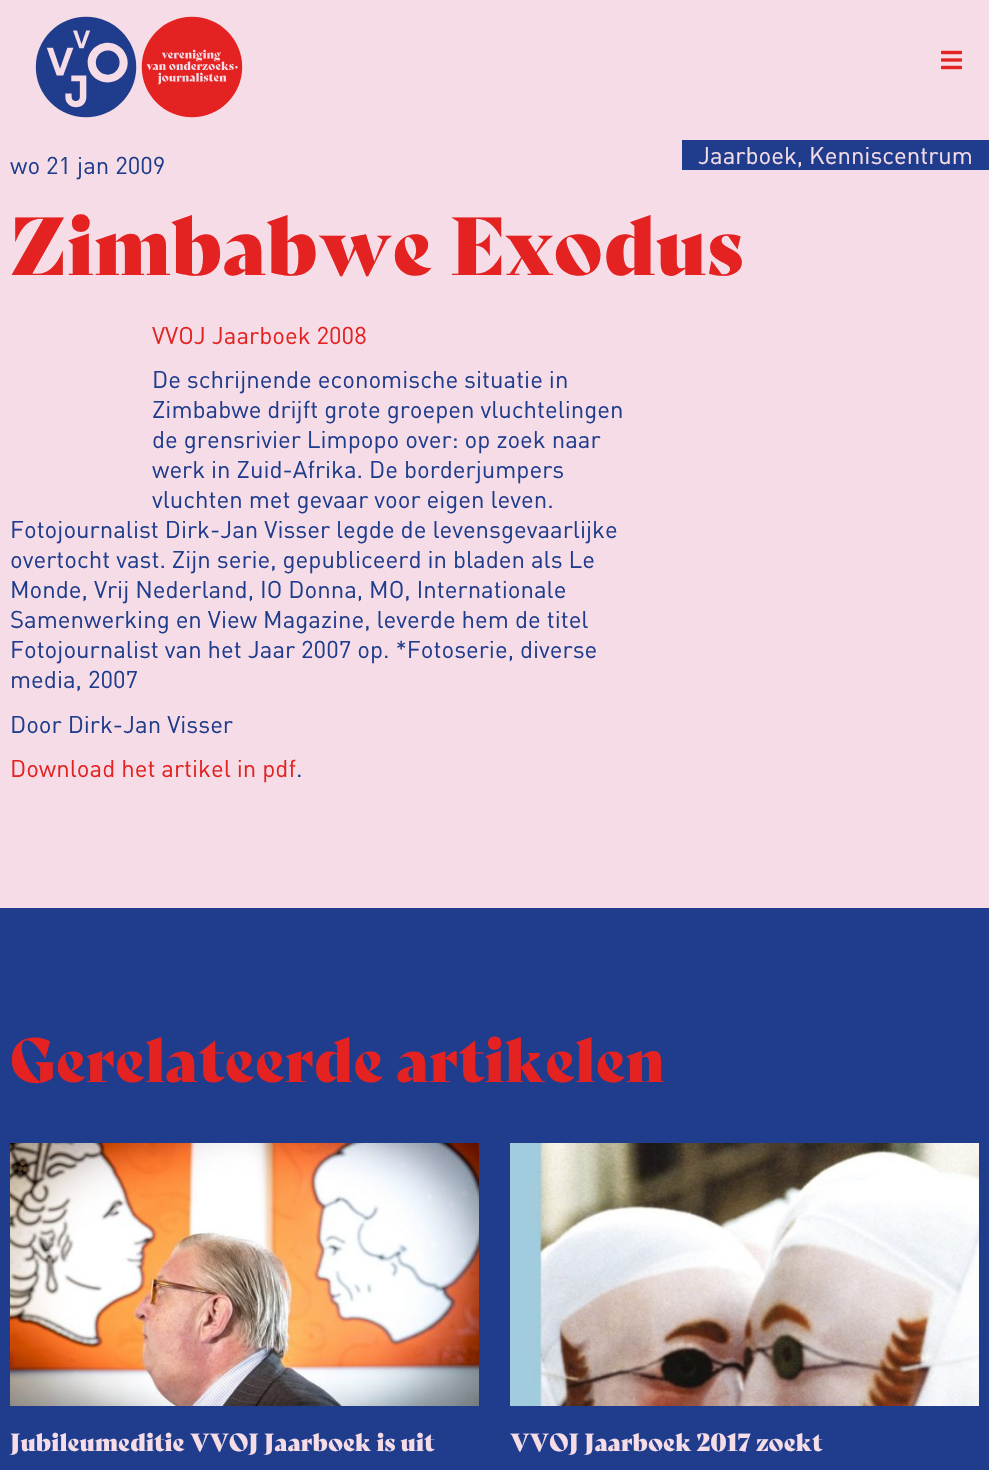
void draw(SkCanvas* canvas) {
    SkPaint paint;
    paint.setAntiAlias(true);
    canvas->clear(0xFFF5DCE6);
    canvas->drawImageRect(SkImages::DeferredFromEncodedData(SkData::MakeFromFileName("img1.png")), SkRect::MakeXYWH(35, 16, 208, 102), SkSamplingOptions());
    canvas->drawImageRect(SkImages::DeferredFromEncodedData(SkData::MakeFromFileName("img2.png")), SkRect::MakeXYWH(941, 50, 21, 20), SkSamplingOptions());
    SkFont font1(fontMgr->matchFamilyStyle("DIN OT", SkFontStyle::Normal()), 24);
    font1.setSubpixel(true);
    paint.setColor(0xFF203D8D);
    canvas->drawString("wo 21 jan 2009", 10, 174, font1, paint);
    canvas->drawRect(SkRect::MakeXYWH(682, 140, 307, 30), paint);
    paint.setColor(0xFFF5DCE6);
    canvas->drawString("Jaarboek, Kenniscentrum", 698, 164, font1, paint);
    SkFont font2(fontMgr->matchFamilyStyle("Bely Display", SkFontStyle::Normal()), 80);
    font2.setSubpixel(true);
    paint.setColor(0xFFE32221);
    canvas->drawString("Zimbabwe Exodus", 10, 275, font2, paint);
    canvas->drawString("VVOJ Jaarboek 2008", 152, 344, font1, paint);
    paint.setColor(0xFF203D8D);
    canvas->drawString("De schrijnende economische situatie in", 152, 388, font1, paint);
    canvas->drawString("Zimbabwe drijft grote groepen vluchtelingen", 152, 418, font1, paint);
    canvas->drawString("de grensrivier Limpopo over: op zoek naar", 152, 448, font1, paint);
    canvas->drawString("werk in Zuid-Afrika. De borderjumpers", 152, 478, font1, paint);
    canvas->drawString("vluchten met gevaar voor eigen leven.", 152, 508, font1, paint);
    canvas->drawString("Fotojournalist Dirk-Jan Visser legde de levensgevaarlijke", 10, 538, font1, paint);
    canvas->drawString("overtocht vast. Zijn serie, gepubliceerd in bladen als Le", 10, 568, font1, paint);
    canvas->drawString("Monde, Vrij Nederland, IO Donna, MO, Internationale", 10, 598, font1, paint);
    canvas->drawString("Samenwerking en View Magazine, leverde hem de titel", 10, 628, font1, paint);
    canvas->drawString("Fotojournalist van het Jaar 2007 op. *Fotoserie, diverse", 10, 658, font1, paint);
    canvas->drawString("media, 2007", 10, 688, font1, paint);
    canvas->drawString("Door Dirk-Jan Visser", 10, 733, font1, paint);
    paint.setColor(0xFFE32221);
    canvas->drawString("Download het artikel in pdf", 10, 777, font1, paint);
    paint.setColor(0xFF203D8D);
    canvas->drawString(".", 296, 777, font1, paint);
    canvas->drawRect(SkRect::MakeXYWH(0, 908, 989, 562), paint);
    SkFont font3(fontMgr->matchFamilyStyle("Bely Display", SkFontStyle::Normal()), 60);
    font3.setSubpixel(true);
    paint.setColor(0xFFE32221);
    canvas->drawString("Gerelateerde artikelen", 10, 1082, font3, paint);
    canvas->drawImageRect(SkImages::DeferredFromEncodedData(SkData::MakeFromFileName("img3.png")), SkRect::MakeXYWH(10, 1143, 469, 263), SkSamplingOptions());
    SkFont font4(fontMgr->matchFamilyStyle("Bely Display", SkFontStyle::Normal()), 24);
    font4.setSubpixel(true);
    paint.setColor(0xFFF5DCE6);
    canvas->drawString("Jubileumeditie VVOJ Jaarboek is uit", 10, 1451, font4, paint);
    canvas->drawImageRect(SkImages::DeferredFromEncodedData(SkData::MakeFromFileName("img4.png")), SkRect::MakeXYWH(510, 1143, 469, 263), SkSamplingOptions());
    canvas->drawString("VVOJ Jaarboek 2017 zoekt", 510, 1451, font4, paint);
}
